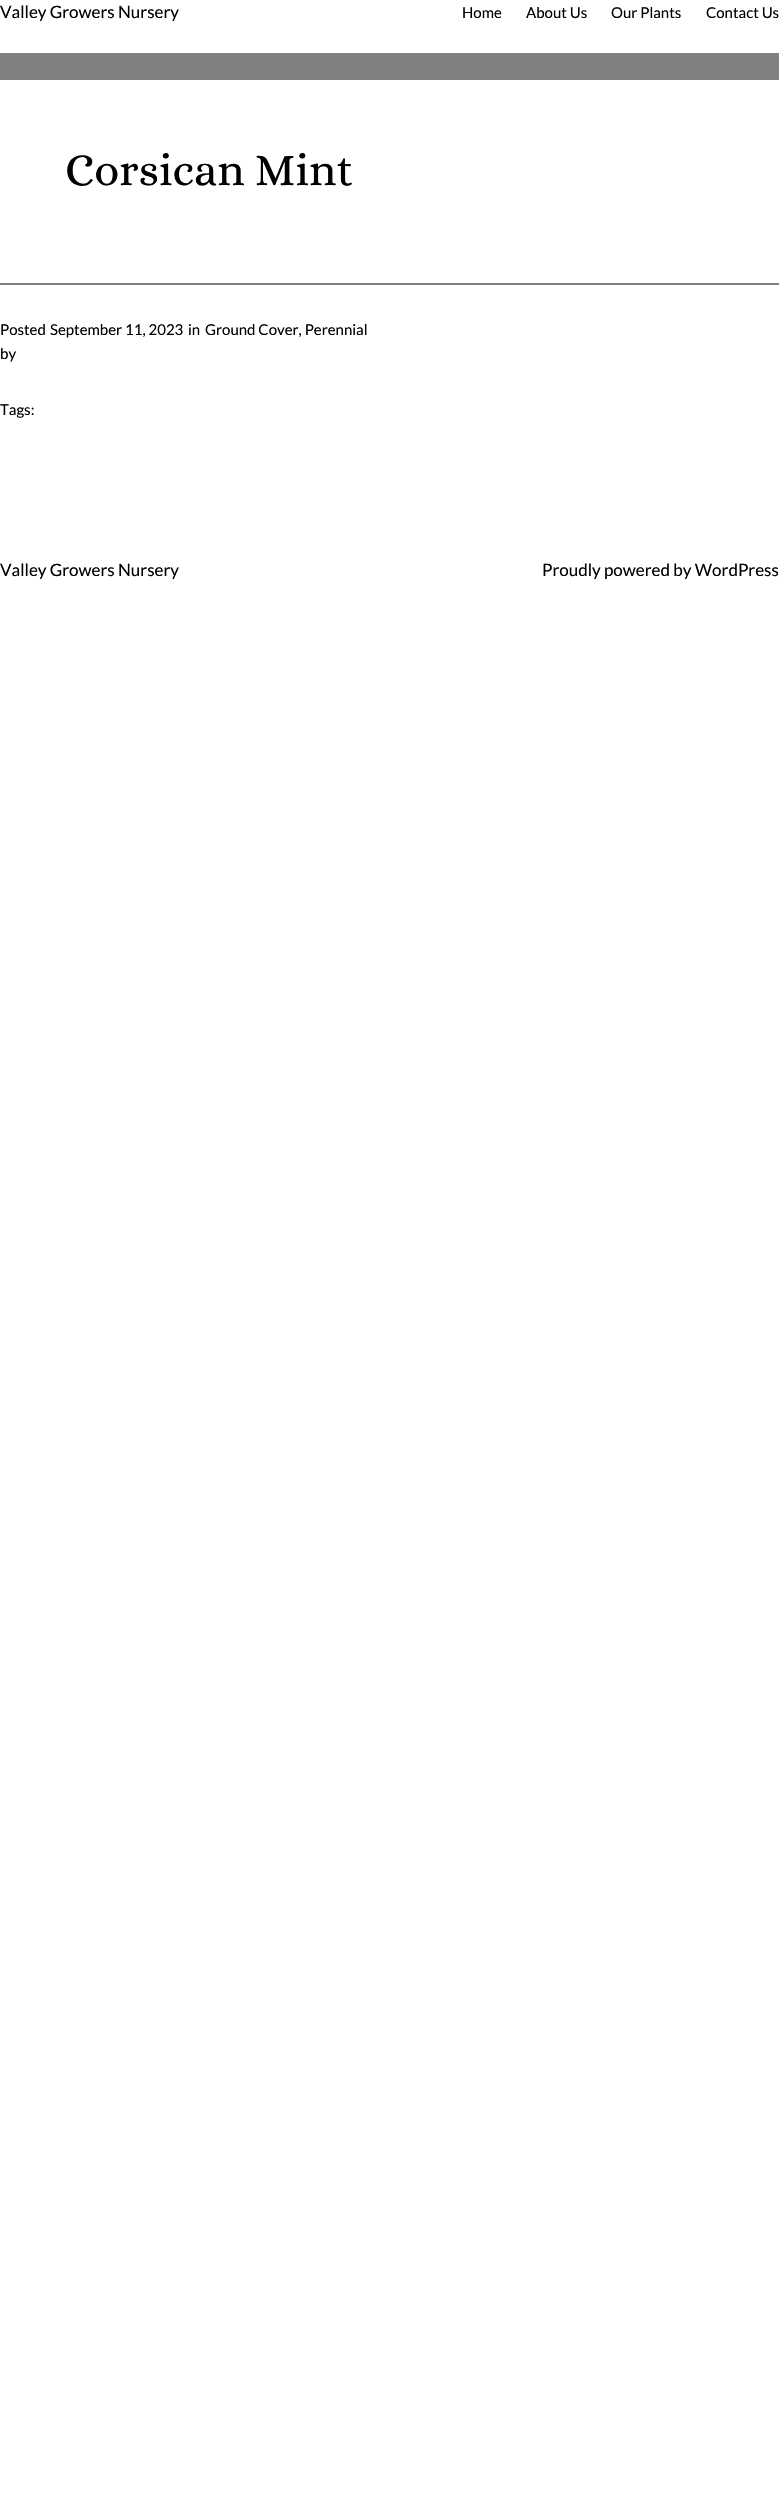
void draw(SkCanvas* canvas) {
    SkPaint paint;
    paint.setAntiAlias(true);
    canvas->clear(0xFFFFFFFF);
    SkFont font1(fontMgr->matchFamilyStyle("Lato", SkFontStyle::Normal()), 17);
    font1.setSubpixel(true);
    paint.setColor(0xFF000000);
    canvas->drawString("Valley Growers Nursery", 0, 18, font1, paint);
    SkFont font2(fontMgr->matchFamilyStyle("Lato", SkFontStyle::Normal()), 15);
    font2.setSubpixel(true);
    canvas->drawString("Home", 462, 18, font2, paint);
    canvas->drawString("About Us", 526, 18, font2, paint);
    canvas->drawString("Our Plants", 611, 18, font2, paint);
    canvas->drawString("Contact Us", 706, 18, font2, paint);
    paint.setColor(0xFF808080);
    canvas->drawRect(SkRect::MakeXYWH(0, 53, 779, 27), paint);
    SkFont font3(fontMgr->matchFamilyStyle("Alice", SkFontStyle::Normal()), 45.75f);
    font3.setSubpixel(true);
    paint.setColor(0xFF000000);
    canvas->drawString("Corsican Mint", 65, 185, font3, paint);
    paint.setColor(0xFF808080);
    canvas->drawRect(SkRect::MakeXYWH(0, 283, 779, 2), paint);
    paint.setColor(0xFF000000);
    canvas->drawString("Posted", 0, 335, font2, paint);
    canvas->drawString("September 11, 2023", 50, 335, font2, paint);
    canvas->drawString("in", 188, 335, font2, paint);
    canvas->drawString("Ground Cover, Perennial", 205, 335, font2, paint);
    canvas->drawString("by", 0, 359, font2, paint);
    canvas->drawString("Tags:", 0, 415, font2, paint);
    canvas->drawString("Valley Growers Nursery", 0, 576, font1, paint);
    canvas->drawString("Proudly powered by WordPress", 542, 576, font1, paint);
}
